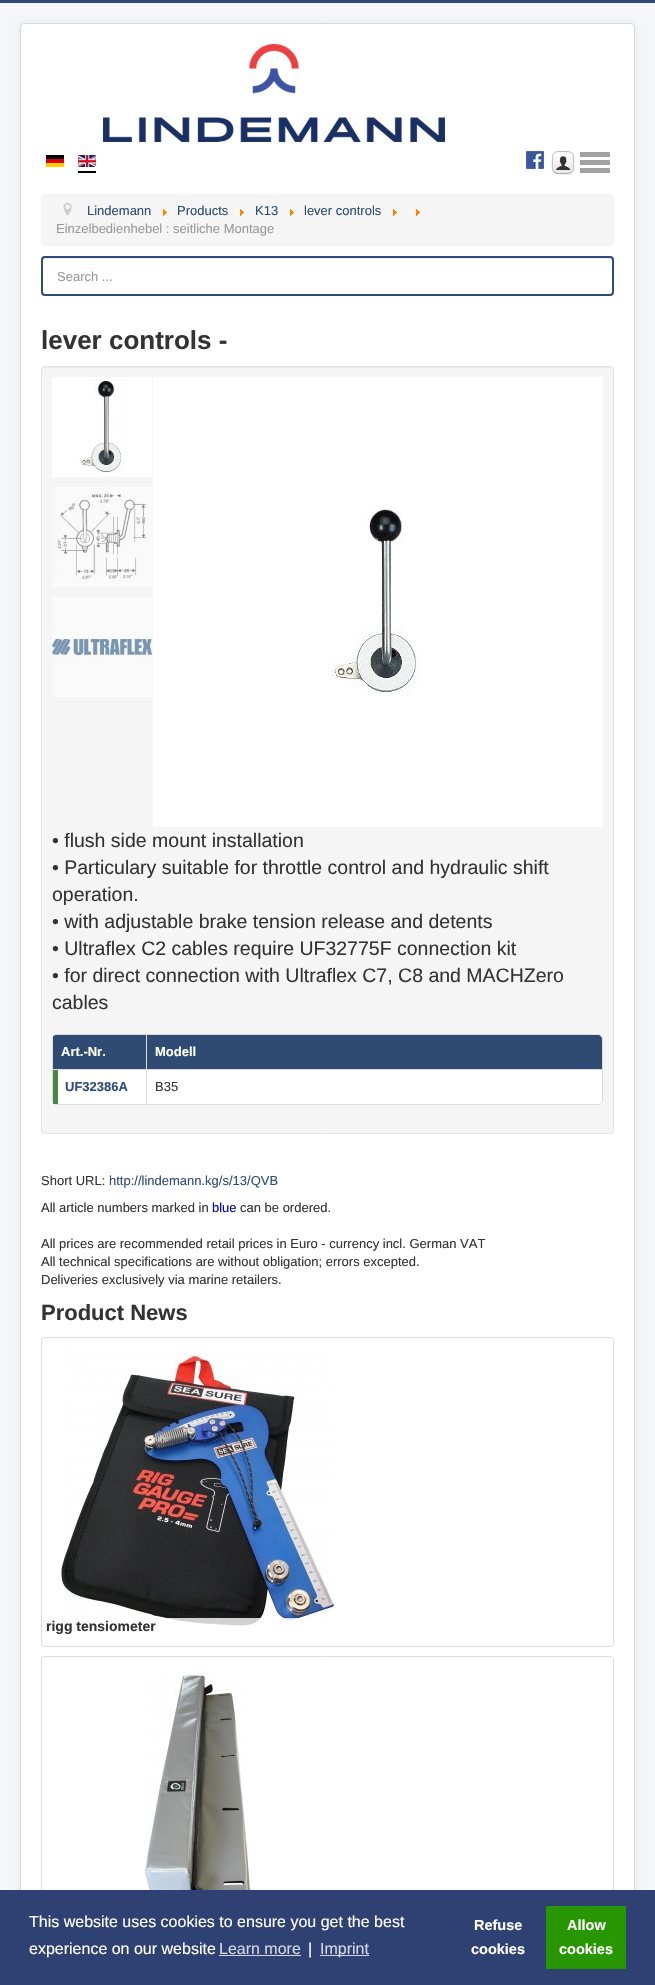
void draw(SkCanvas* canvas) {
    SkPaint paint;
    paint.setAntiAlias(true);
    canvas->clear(0xFFF4F6F7);
    paint.setColor(0xFF2F4A73);
    canvas->drawRect(SkRect::MakeXYWH(0, 0, 655, 3), paint);
    paint.setColor(0x0D000000);
    paint.setMaskFilter(SkMaskFilter::MakeBlur(kNormal_SkBlurStyle, 3));
    canvas->drawRoundRect(SkRect::MakeXYWH(20, 23, 615, 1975), 4, 4, paint);
    paint.setMaskFilter(nullptr);
    paint.setColor(0xFFFFFFFF);
    canvas->drawRoundRect(SkRect::MakeXYWH(20, 23, 615, 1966), 4, 4, paint);
    paint.setStyle(SkPaint::kStroke_Style);
    paint.setStrokeWidth(1);
    paint.setColor(0x26000000);
    canvas->drawRoundRect(SkRect::MakeXYWH(20.5f, 23.5f, 614, 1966), 3.5f, 3.5f, paint);
    canvas->drawImageRect(SkImages::DeferredFromEncodedData(SkData::MakeFromFileName("img1.png")), SkRect::MakeXYWH(103, 44, 342, 98), SkSamplingOptions());
    canvas->drawImageRect(SkImages::DeferredFromEncodedData(SkData::MakeFromFileName("img2.png")), SkRect::MakeXYWH(46, 155, 18, 12), SkSamplingOptions());
    canvas->drawImageRect(SkImages::DeferredFromEncodedData(SkData::MakeFromFileName("img3.png")), SkRect::MakeXYWH(78, 155, 18, 12), SkSamplingOptions());
    paint.setStyle(SkPaint::kFill_Style);
    paint.setColor(0xFF000000);
    canvas->drawRect(SkRect::MakeXYWH(78, 171, 18, 2), paint);
    canvas->drawImageRect(SkImages::DeferredFromEncodedData(SkData::MakeFromFileName("img4.png")), SkRect::MakeXYWH(526, 151, 18, 18), SkSamplingOptions());
    paint.setColor(0x0D000000);
    paint.setMaskFilter(SkMaskFilter::MakeBlur(kNormal_SkBlurStyle, 1));
    canvas->drawRoundRect(SkRect::MakeXYWH(552, 152, 22, 23), 6, 6, paint);
    paint.setMaskFilter(nullptr);
    paint.setColor(0xFFF5F5F5);
    canvas->drawRoundRect(SkRect::MakeXYWH(552, 151, 22, 23), 6, 6, paint);
    canvas->save();
    canvas->clipPath(SkPathBuilder().moveTo(558, 151).lineTo(568, 151).cubicTo(571.5f, 151, 574, 153.5f, 574, 157).lineTo(574, 168).cubicTo(574, 171.5f, 571.5f, 174, 568, 174).lineTo(558, 174).cubicTo(554.5f, 174, 552, 171.5f, 552, 168).lineTo(552, 157).cubicTo(552, 153.5f, 554.5f, 151, 558, 151).close().detach(), true);
    {
        const SkColor colors[] = {0xFFFFFFFF, 0xFFE6E6E6};
        const float stops[] = {0, 1};
        const SkPoint ends[] = {{563, 152}, {563, 173}};
        paint.setShader(SkGradientShader::MakeLinear(ends, colors, stops, 2, SkTileMode::kClamp));
        paint.setAlpha(255);
    }
    canvas->drawRect(SkRect::MakeXYWH(552, 152, 22, 21), paint);
    canvas->restore();
    paint.setStyle(SkPaint::kStroke_Style);
    paint.setShader(nullptr);
    paint.setColor(0xFFA2A2A2);
    canvas->drawPath(SkPathBuilder().moveTo(572, 172).cubicTo(569.5f, 174, 566, 173.5f, 563, 173.5f).cubicTo(560, 173.5f, 556.5f, 174, 554, 172).detach(), paint);
    paint.setColor(0xFFBBBBBB);
    canvas->drawPath(SkPathBuilder().moveTo(554, 172).cubicTo(551.5f, 169, 552.5f, 164, 552.5f, 160.5f).cubicTo(552.5f, 151.5f, 554.5f, 151.5f, 563, 151.5f).cubicTo(573.5f, 151.5f, 573.5f, 152.5f, 573.5f, 162.5f).cubicTo(573.5f, 165.5f, 574.5f, 169.5f, 572, 172).detach(), paint);
    canvas->drawImageRect(SkImages::DeferredFromEncodedData(SkData::MakeFromFileName("img5.png")), SkRect::MakeXYWH(556, 156, 15, 14), SkSamplingOptions());
    paint.setStyle(SkPaint::kFill_Style);
    paint.setColor(0xFFA2A2A2);
    canvas->drawRect(SkRect::MakeXYWH(580, 152, 30, 5), paint);
    canvas->drawRect(SkRect::MakeXYWH(580, 160, 30, 5), paint);
    canvas->drawRect(SkRect::MakeXYWH(580, 168, 30, 5), paint);
    paint.setColor(0xFFF5F5F5);
    canvas->drawRoundRect(SkRect::MakeXYWH(41, 194, 573, 52), 4, 4, paint);
    canvas->drawImageRect(SkImages::DeferredFromEncodedData(SkData::MakeFromFileName("img6.png")), SkRect::MakeXYWH(63, 202, 9, 14), SkSamplingOptions());
    SkFont font1(fontMgr->matchFamilyStyle("Liberation Sans", SkFontStyle::Normal()), 13);
    font1.setSubpixel(true);
    paint.setColor(0xFF2F4A73);
    canvas->drawString("Lindemann", 87, 215, font1, paint);
    canvas->drawImageRect(SkImages::DeferredFromEncodedData(SkData::MakeFromFileName("img7.png")), SkRect::MakeXYWH(163, 209, 4, 7), SkSamplingOptions());
    canvas->drawString("Products", 177, 215, font1, paint);
    canvas->drawImageRect(SkImages::DeferredFromEncodedData(SkData::MakeFromFileName("img7.png")), SkRect::MakeXYWH(240, 209, 4, 7), SkSamplingOptions());
    canvas->drawString("K13", 255, 215, font1, paint);
    canvas->drawImageRect(SkImages::DeferredFromEncodedData(SkData::MakeFromFileName("img7.png")), SkRect::MakeXYWH(290, 209, 4, 7), SkSamplingOptions());
    canvas->drawString("lever controls", 304, 215, font1, paint);
    canvas->drawImageRect(SkImages::DeferredFromEncodedData(SkData::MakeFromFileName("img7.png")), SkRect::MakeXYWH(393, 209, 4, 7), SkSamplingOptions());
    canvas->drawImageRect(SkImages::DeferredFromEncodedData(SkData::MakeFromFileName("img7.png")), SkRect::MakeXYWH(416, 209, 4, 7), SkSamplingOptions());
    paint.setColor(0xFF999999);
    canvas->drawString("Einzelbedienhebel : seitliche Montage", 56, 233, font1, paint);
    paint.setColor(0xFFECECEC);
    canvas->drawPath(SkPathBuilder().moveTo(45, 259).lineTo(610, 259).cubicTo(611, 259, 612, 260, 612, 261).cubicTo(612, 260, 612, 258, 610, 258).lineTo(45, 258).lineTo(43, 259).lineTo(43, 261).cubicTo(43, 260, 44, 259, 45, 259).close().detach(), paint);
    paint.setStyle(SkPaint::kStroke_Style);
    paint.setStrokeWidth(2);
    paint.setColor(0xFF2F4A73);
    canvas->drawRoundRect(SkRect::MakeXYWH(42, 257, 571, 38), 3, 3, paint);
    paint.setStyle(SkPaint::kFill_Style);
    paint.setColor(0xFF999999);
    canvas->drawString("Search ...", 57, 281, font1, paint);
    SkFont font2(fontMgr->matchFamilyStyle("Liberation Sans", SkFontStyle::Bold()), 26);
    font2.setSubpixel(true);
    paint.setColor(0xFF333333);
    canvas->drawString("lever controls -", 41, 349, font2, paint);
    paint.setColor(0xFFF5F5F5);
    canvas->drawRoundRect(SkRect::MakeXYWH(41, 366, 573, 768), 4, 4, paint);
    paint.setColor(0xFFE9E9E9);
    canvas->drawPath(SkPathBuilder().moveTo(45, 368).lineTo(610, 368).cubicTo(612, 368, 613, 369, 613, 371).lineTo(613, 370).cubicTo(613, 368, 612, 367, 610, 367).lineTo(45, 367).cubicTo(43, 367, 42, 368, 42, 370).lineTo(42, 371).cubicTo(42, 369, 43, 368, 45, 368).close().detach(), paint);
    paint.setStyle(SkPaint::kStroke_Style);
    paint.setStrokeWidth(1);
    paint.setColor(0xFFE3E3E3);
    canvas->drawRoundRect(SkRect::MakeXYWH(41.5f, 366.5f, 572, 767), 3.5f, 3.5f, paint);
    canvas->drawImageRect(SkImages::DeferredFromEncodedData(SkData::MakeFromFileName("img8.png")), SkRect::MakeXYWH(52, 377, 100, 100), SkSamplingOptions());
    canvas->drawImageRect(SkImages::DeferredFromEncodedData(SkData::MakeFromFileName("img9.png")), SkRect::MakeXYWH(52, 487, 100, 100), SkSamplingOptions());
    canvas->drawImageRect(SkImages::DeferredFromEncodedData(SkData::MakeFromFileName("img10.png")), SkRect::MakeXYWH(52, 597, 100, 100), SkSamplingOptions());
    canvas->drawImageRect(SkImages::DeferredFromEncodedData(SkData::MakeFromFileName("img11.png")), SkRect::MakeXYWH(153, 377, 450, 450), SkSamplingOptions());
    SkFont font3(fontMgr->matchFamilyStyle("Liberation Sans", SkFontStyle::Normal()), 19.5f);
    font3.setSubpixel(true);
    paint.setStyle(SkPaint::kFill_Style);
    paint.setColor(0xFF333333);
    canvas->drawString("• flush side mount installation", 52, 847, font3, paint);
    canvas->drawString("• Particulary suitable for throttle control and hydraulic shift", 52, 874, font3, paint);
    canvas->drawString("operation.", 52, 901, font3, paint);
    canvas->drawString("• with adjustable brake tension release and detents", 52, 928, font3, paint);
    canvas->drawString("• Ultraflex C2 cables require UF32775F connection kit", 52, 955, font3, paint);
    canvas->drawString("• for direct connection with Ultraflex C7, C8 and MACHZero", 52, 982, font3, paint);
    canvas->drawString("cables", 52, 1009, font3, paint);
    paint.setColor(0xFFFFFFFF);
    canvas->drawRoundRect(SkRect::MakeXYWH(52, 1034, 551, 71), 4, 4, paint);
    paint.setColor(0xFFDDDDDD);
    canvas->drawPath(SkPathBuilder(SkPathFillType::kEvenOdd).moveTo(56, 1034).lineTo(599, 1034).cubicTo(601, 1034, 603, 1036, 603, 1038).lineTo(603, 1101).cubicTo(603, 1103, 601, 1105, 599, 1105).lineTo(56, 1105).cubicTo(54, 1105, 52, 1103, 52, 1101).lineTo(52, 1038).cubicTo(52, 1036, 54, 1034, 56, 1034).close().moveTo(56, 1035).lineTo(599, 1035).cubicTo(601, 1035, 602, 1036, 602, 1038).lineTo(602, 1101).cubicTo(602, 1103, 601, 1104, 599, 1104).lineTo(56, 1104).cubicTo(54, 1104, 52, 1103, 52, 1101).lineTo(52, 1038).cubicTo(52, 1036, 54, 1035, 56, 1035).close().detach(), paint);
    paint.setColor(0xFF2F4A73);
    canvas->drawPath(SkPathBuilder().moveTo(56, 1035).lineTo(146, 1035).lineTo(146, 1069).lineTo(52, 1069).lineTo(52, 1039).cubicTo(52, 1037, 54, 1035, 56, 1035).close().detach(), paint);
    paint.setColor(0xFFDDDDDD);
    canvas->drawRect(SkRect::MakeXYWH(52, 1037, 1, 32), paint);
    SkFont font4(fontMgr->matchFamilyStyle("Liberation Sans", SkFontStyle::Bold()), 13);
    font4.setSubpixel(true);
    paint.setColor(0xFFFFFFFF);
    canvas->drawString("Art.-Nr.", 61, 1056, font4, paint);
    paint.setColor(0xFF2F4A73);
    canvas->drawPath(SkPathBuilder().moveTo(146, 1035).lineTo(598, 1035).cubicTo(600, 1035, 602, 1037, 602, 1039).lineTo(602, 1069).lineTo(146, 1069).close().detach(), paint);
    paint.setColor(0xFFDDDDDD);
    canvas->drawRect(SkRect::MakeXYWH(146, 1035, 1, 34), paint);
    paint.setColor(0xFFFFFFFF);
    canvas->drawString("Modell", 155, 1056, font4, paint);
    paint.setColor(0xFFDDDDDD);
    canvas->drawRect(SkRect::MakeXYWH(52, 1069, 550, 1), paint);
    canvas->drawRect(SkRect::MakeXYWH(52, 1069, 1, 33), paint);
    paint.setColor(0xFF468847);
    canvas->drawRect(SkRect::MakeXYWH(53, 1070, 5, 34), paint);
    paint.setColor(0xFF2F4A73);
    canvas->drawString("UF32386A", 65, 1091, font4, paint);
    paint.setColor(0xFFDDDDDD);
    canvas->drawRect(SkRect::MakeXYWH(146, 1069, 1, 35), paint);
    paint.setColor(0xFF333333);
    canvas->drawString("B35", 155, 1091, font1, paint);
    canvas->drawString("Short URL:", 41, 1185, font1, paint);
    paint.setColor(0xFF2F4A73);
    canvas->drawString("http://lindemann.kg/s/13/QVB", 109, 1185, font1, paint);
    paint.setColor(0xFF333333);
    canvas->drawString("All article numbers marked in", 41, 1212, font1, paint);
    paint.setColor(0xFF0000AA);
    canvas->drawString("blue", 212, 1212, font1, paint);
    paint.setColor(0xFF333333);
    canvas->drawString("can be ordered.", 240, 1212, font1, paint);
    canvas->drawString("All prices are recommended retail prices in Euro - currency incl. German VAT", 41, 1248, font1, paint);
    canvas->drawString("All technical specifications are without obligation; errors excepted.", 41, 1266, font1, paint);
    canvas->drawString("Deliveries exclusively via marine retailers.", 41, 1284, font1, paint);
    SkFont font5(fontMgr->matchFamilyStyle("Liberation Sans", SkFontStyle::Bold()), 22);
    font5.setSubpixel(true);
    canvas->drawString("Product News", 41, 1320, font5, paint);
    paint.setStyle(SkPaint::kStroke_Style);
    paint.setColor(0xFFDDDDDD);
    canvas->drawRoundRect(SkRect::MakeXYWH(41.5f, 1337.5f, 572, 309), 3.5f, 3.5f, paint);
    canvas->drawImageRect(SkImages::DeferredFromEncodedData(SkData::MakeFromFileName("img12.png")), SkRect::MakeXYWH(61, 1346, 273, 284), SkSamplingOptions());
    paint.setStyle(SkPaint::kFill_Style);
    paint.setColor(0xCCFFFFFF);
    canvas->drawRect(SkRect::MakeXYWH(153, 1618, 165, 12), paint);
    SkFont font6(fontMgr->matchFamilyStyle("Liberation Sans", SkFontStyle::Bold()), 14);
    font6.setSubpixel(true);
    paint.setColor(0xFF333333);
    canvas->drawString("rigg tensiometer", 46, 1631, font6, paint);
    paint.setStyle(SkPaint::kStroke_Style);
    paint.setColor(0xFFDDDDDD);
    canvas->drawRoundRect(SkRect::MakeXYWH(41.5f, 1656.5f, 572, 309), 3.5f, 3.5f, paint);
    canvas->drawImageRect(SkImages::DeferredFromEncodedData(SkData::MakeFromFileName("img13.png")), SkRect::MakeXYWH(143, 1673, 111, 217), SkSamplingOptions());
    paint.setStyle(SkPaint::kFill_Style);
    paint.setColor(0xFF2F4173);
    canvas->drawRect(SkRect::MakeXYWH(0, 1890, 655, 95), paint);
    SkFont font7(fontMgr->matchFamilyStyle("Liberation Sans", SkFontStyle::Normal()), 16);
    font7.setSubpixel(true);
    paint.setColor(0xFFFFFFFF);
    canvas->drawString("This website uses cookies to ensure you get the best", 29, 1927, font7, paint);
    canvas->drawString("experience on our website", 29, 1954, font7, paint);
    paint.setColor(0xFFD5D9E3);
    canvas->drawString("Learn more", 219, 1954, font7, paint);
    canvas->drawRect(SkRect::MakeXYWH(219, 1955, 82, 1), paint);
    paint.setColor(0xFFFFFFFF);
    canvas->drawString("|", 308, 1954, font7, paint);
    paint.setColor(0xFFD5D9E3);
    canvas->drawRect(SkRect::MakeXYWH(320, 1955, 49, 1), paint);
    canvas->drawString("Imprint", 320, 1954, font7, paint);
    SkFont font8(fontMgr->matchFamilyStyle("Liberation Sans", SkFontStyle::Bold()), 14.5f);
    font8.setSubpixel(true);
    paint.setColor(0xFFFFFFFF);
    canvas->drawString("Refuse", 474, 1930, font8, paint);
    canvas->drawString("cookies", 471, 1954, font8, paint);
    paint.setColor(0xFF289600);
    canvas->drawRect(SkRect::MakeXYWH(546, 1906, 80, 63), paint);
    paint.setColor(0xFFFFFFFF);
    canvas->drawString("Allow", 567, 1930, font8, paint);
    canvas->drawString("cookies", 559, 1954, font8, paint);
}
